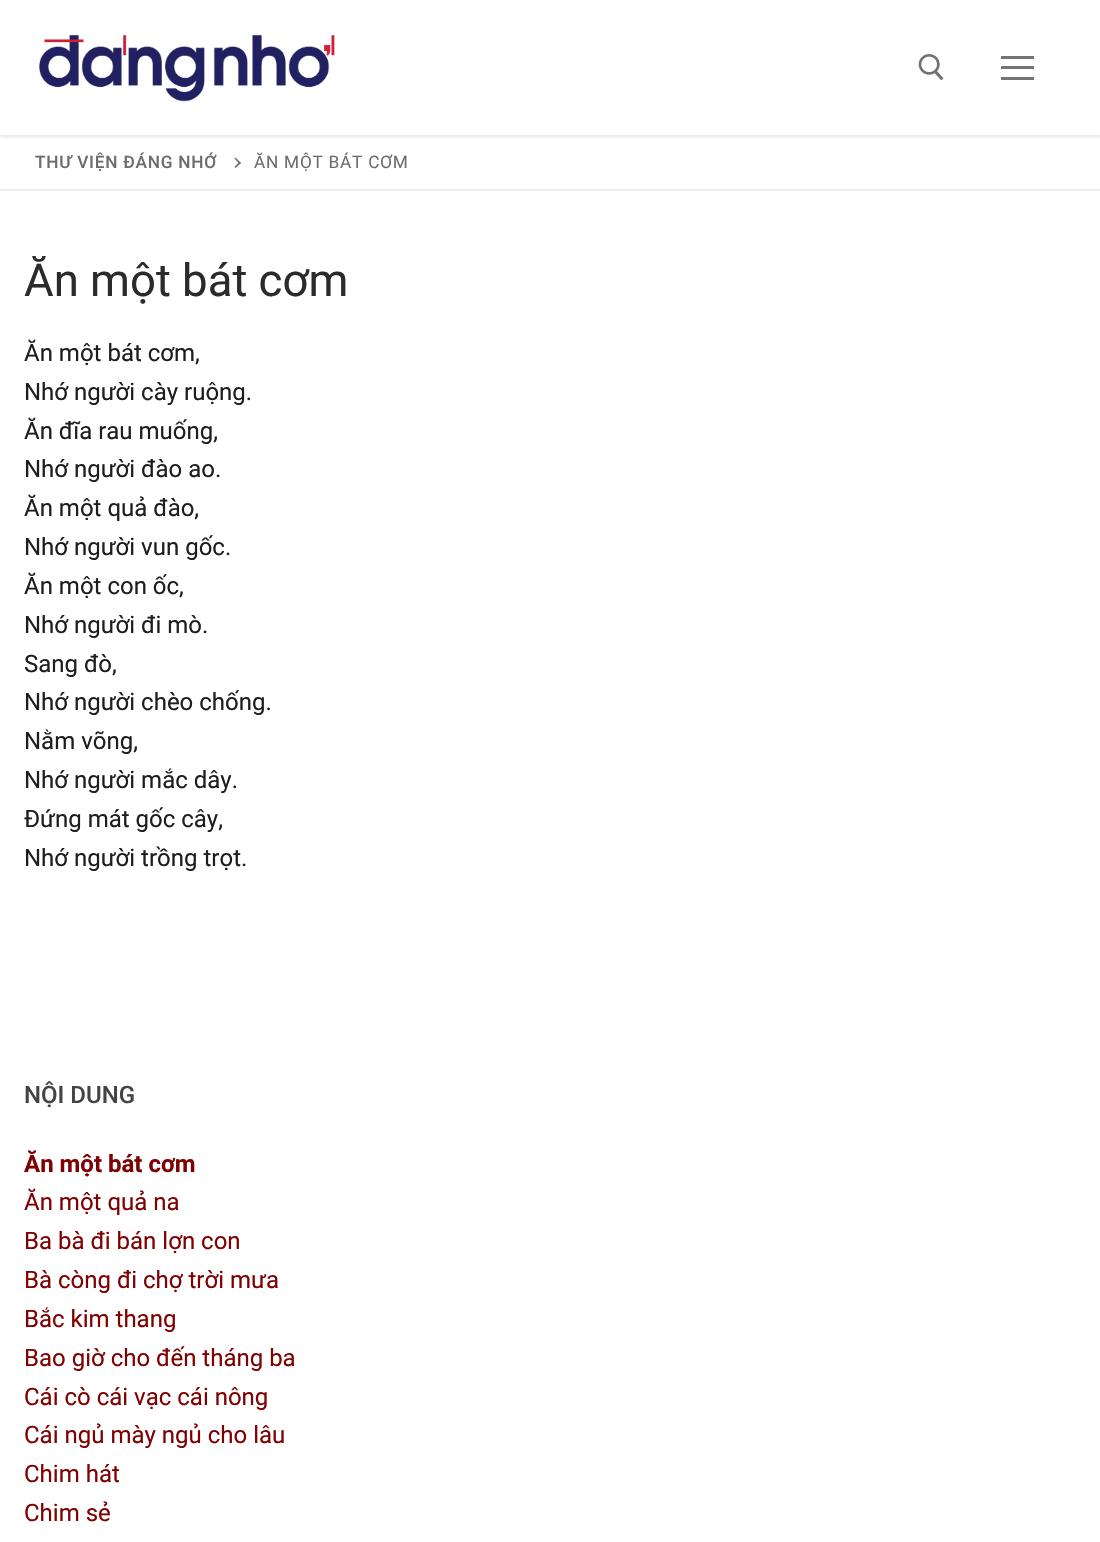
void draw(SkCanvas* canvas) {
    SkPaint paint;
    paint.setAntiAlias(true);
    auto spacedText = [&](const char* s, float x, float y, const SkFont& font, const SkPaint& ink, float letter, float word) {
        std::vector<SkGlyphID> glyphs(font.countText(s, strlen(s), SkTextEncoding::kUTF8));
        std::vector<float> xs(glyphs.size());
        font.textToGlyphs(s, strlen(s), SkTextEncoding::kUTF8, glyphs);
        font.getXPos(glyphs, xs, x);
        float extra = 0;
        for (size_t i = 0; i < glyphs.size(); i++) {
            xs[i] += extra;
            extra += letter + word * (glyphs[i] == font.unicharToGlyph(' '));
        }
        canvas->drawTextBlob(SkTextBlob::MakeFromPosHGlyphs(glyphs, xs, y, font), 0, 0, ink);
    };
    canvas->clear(0xFFFFFFFF);
    canvas->save();
    canvas->clipRect(SkRect::MakeXYWH(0, 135, 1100, 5));
    paint.setColor(0xFFE1E5EA);
    paint.setMaskFilter(SkMaskFilter::MakeBlur(kNormal_SkBlurStyle, 1.5f));
    canvas->drawRect(SkRect::MakeXYWH(0, 2, 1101, 135), paint);
    paint.setMaskFilter(nullptr);
    canvas->restore();
    canvas->drawImageRect(SkImages::DeferredFromEncodedData(SkData::MakeFromFileName("img1.png")), SkRect::MakeXYWH(39, 34, 296, 68), SkSamplingOptions());
    canvas->drawImageRect(SkImages::DeferredFromEncodedData(SkData::MakeFromFileName("img2.png")), SkRect::MakeXYWH(918, 54, 26, 27), SkSamplingOptions());
    paint.setColor(0xFF737373);
    canvas->drawRect(SkRect::MakeXYWH(1001, 66, 33, 3), paint);
    canvas->drawRect(SkRect::MakeXYWH(1001, 56, 33, 3), paint);
    canvas->drawRect(SkRect::MakeXYWH(1001, 77, 33, 3), paint);
    paint.setColor(0xFFEAECEE);
    canvas->drawRect(SkRect::MakeXYWH(0, 189, 1100, 2), paint);
    SkFont font1(fontMgr->matchFamilyStyle("Roboto", SkFontStyle(500, SkFontStyle::kNormal_Width, SkFontStyle::kUpright_Slant)), 17.25f);
    font1.setSubpixel(true);
    paint.setColor(0xFF6D6D6D);
    spacedText("THƯ VIỆN ĐÁNG NHỚ", 35, 168, font1, paint, 0.75f, 0);
    canvas->drawPath(SkPathBuilder().moveTo(241, 163).lineTo(235.5f, 168).lineTo(234.5f, 167).lineTo(239.5f, 161.5f).close().detach(), paint);
    canvas->drawPath(SkPathBuilder().moveTo(241, 163).lineTo(239.5f, 164).lineTo(234.5f, 158.5f).lineTo(235.5f, 157.5f).close().detach(), paint);
    SkFont font2(fontMgr->matchFamilyStyle("Roboto", SkFontStyle::Normal()), 17.25f);
    font2.setSubpixel(true);
    spacedText("ĂN MỘT BÁT CƠM", 254, 168, font2, paint, 0.75f, 0);
    SkFont font3(fontMgr->matchFamilyStyle("Roboto", SkFontStyle::Normal()), 45.5f);
    font3.setSubpixel(true);
    paint.setColor(0xFF2B2B2B);
    canvas->drawString("Ăn một bát cơm", 24, 296, font3, paint);
    SkFont font4(fontMgr->matchFamilyStyle("Roboto", SkFontStyle::Normal()), 24);
    font4.setSubpixel(true);
    paint.setColor(0xFF1E1E1E);
    canvas->drawString("Ăn một bát cơm,", 24, 361, font4, paint);
    canvas->drawString("Nhớ người cày ruộng.", 24, 400, font4, paint);
    canvas->drawString("Ăn đĩa rau muống,", 24, 439, font4, paint);
    canvas->drawString("Nhớ người đào ao.", 24, 477, font4, paint);
    canvas->drawString("Ăn một quả đào,", 24, 516, font4, paint);
    canvas->drawString("Nhớ người vun gốc.", 24, 555, font4, paint);
    canvas->drawString("Ăn một con ốc,", 24, 594, font4, paint);
    canvas->drawString("Nhớ người đi mò.", 24, 633, font4, paint);
    canvas->drawString("Sang đò,", 24, 672, font4, paint);
    canvas->drawString("Nhớ người chèo chống.", 24, 710, font4, paint);
    canvas->drawString("Nằm võng,", 24, 749, font4, paint);
    canvas->drawString("Nhớ người mắc dây.", 24, 788, font4, paint);
    canvas->drawString("Đứng mát gốc cây,", 24, 827, font4, paint);
    canvas->drawString("Nhớ người trồng trọt.", 24, 866, font4, paint);
    SkFont font5(fontMgr->matchFamilyStyle("Roboto", SkFontStyle(500, SkFontStyle::kNormal_Width, SkFontStyle::kUpright_Slant)), 24);
    font5.setSubpixel(true);
    paint.setColor(0xFF444444);
    canvas->drawString("NỘI DUNG", 24, 1103, font5, paint);
    SkFont font6(fontMgr->matchFamilyStyle("Roboto", SkFontStyle::Bold()), 24);
    font6.setSubpixel(true);
    paint.setColor(0xFF7F0101);
    canvas->drawString("Ăn một bát cơm", 24, 1172, font6, paint);
    canvas->drawString("Ăn một quả na", 24, 1210, font4, paint);
    canvas->drawString("Ba bà đi bán lợn con", 24, 1249, font4, paint);
    canvas->drawString("Bà còng đi chợ trời mưa", 24, 1288, font4, paint);
    canvas->drawString("Bắc kim thang", 24, 1327, font4, paint);
    canvas->drawString("Bao giờ cho đến tháng ba", 24, 1366, font4, paint);
    canvas->drawString("Cái cò cái vạc cái nông", 24, 1405, font4, paint);
    canvas->drawString("Cái ngủ mày ngủ cho lâu", 24, 1443, font4, paint);
    canvas->drawString("Chim hát", 24, 1482, font4, paint);
    canvas->drawString("Chim sẻ", 24, 1521, font4, paint);
}
